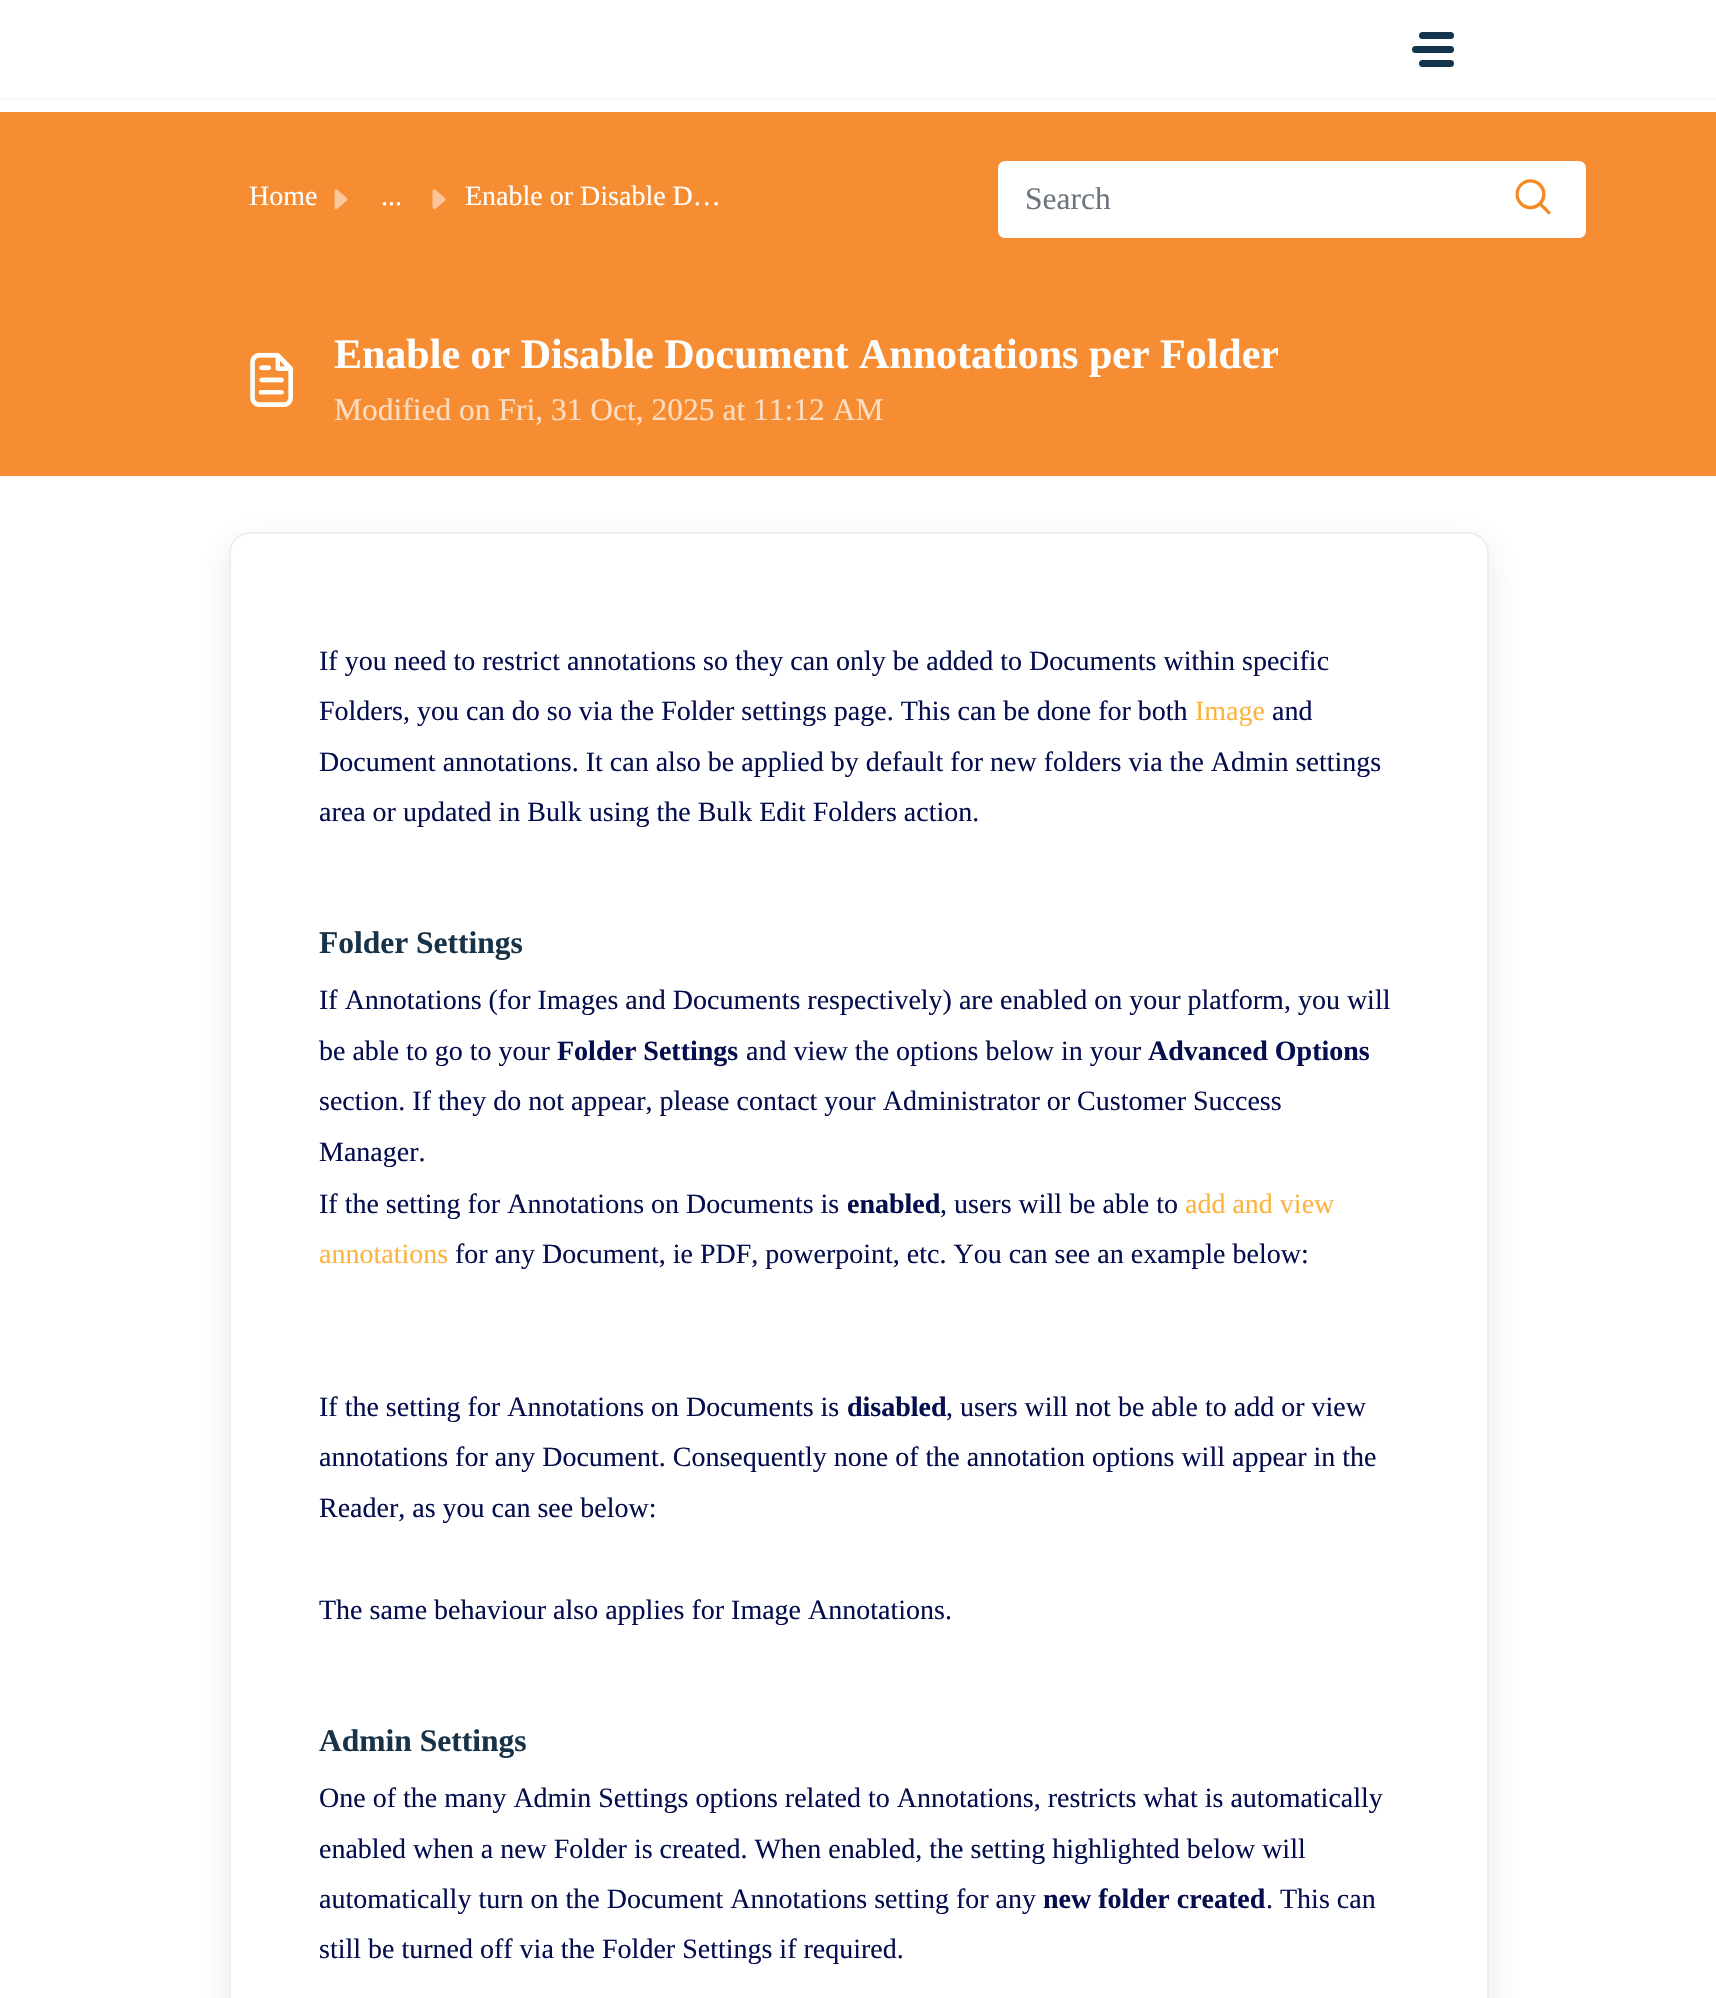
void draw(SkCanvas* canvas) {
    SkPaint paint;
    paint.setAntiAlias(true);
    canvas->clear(0xFFFFFFFF);
    paint.setColor(0xFFF4F6F8);
    canvas->drawRect(SkRect::MakeXYWH(0, 98, 1716, 2), paint);
    paint.setColor(0xFF12344D);
    canvas->drawRoundRect(SkRect::MakeXYWH(1419, 32, 35, 7), 3.5f, 3.5f, paint);
    canvas->drawRoundRect(SkRect::MakeXYWH(1412, 46, 42, 7), 3.5f, 3.5f, paint);
    canvas->drawRoundRect(SkRect::MakeXYWH(1419, 60, 35, 7), 3.5f, 3.5f, paint);
    paint.setColor(0xFFF68D32);
    canvas->drawRect(SkRect::MakeXYWH(0, 112, 1716, 364), paint);
    SkFont font1(fontMgr->matchFamilyStyle("Liberation Serif", SkFontStyle::Normal()), 28);
    font1.setSubpixel(true);
    paint.setColor(0xFFFFFFFF);
    canvas->drawString("Home", 249, 205, font1, paint);
    canvas->drawImageRect(SkImages::DeferredFromEncodedData(SkData::MakeFromFileName("img1.png")), SkRect::MakeXYWH(334, 189, 14, 21), SkSamplingOptions());
    canvas->drawString("...", 381, 205, font1, paint);
    canvas->drawImageRect(SkImages::DeferredFromEncodedData(SkData::MakeFromFileName("img1.png")), SkRect::MakeXYWH(432, 189, 14, 21), SkSamplingOptions());
    canvas->drawString("Enable or Disable D…", 465, 205, font1, paint);
    canvas->drawRoundRect(SkRect::MakeXYWH(998, 161, 588, 77), 7, 7, paint);
    SkFont font2(fontMgr->matchFamilyStyle("Liberation Serif", SkFontStyle::Normal()), 31.5f);
    font2.setSubpixel(true);
    paint.setColor(0xFF6C757D);
    canvas->drawString("Search", 1025, 209, font2, paint);
    canvas->drawImageRect(SkImages::DeferredFromEncodedData(SkData::MakeFromFileName("img2.png")), SkRect::MakeXYWH(1515, 179, 36, 36), SkSamplingOptions());
    canvas->drawImageRect(SkImages::DeferredFromEncodedData(SkData::MakeFromFileName("img3.png")), SkRect::MakeXYWH(250, 352, 43, 55), SkSamplingOptions());
    SkFont font3(fontMgr->matchFamilyStyle("Liberation Serif", SkFontStyle::Bold()), 42);
    font3.setSubpixel(true);
    paint.setColor(0xFFFFFFFF);
    canvas->drawString("Enable or Disable Document Annotations per Folder", 334, 368, font3, paint);
    paint.setColor(0xFFFCDDC2);
    canvas->drawString("Modified on Fri, 31 Oct, 2025 at 11:12 AM", 334, 420, font2, paint);
    canvas->save();
    canvas->clipPath(SkPathBuilder(SkPathFillType::kEvenOdd).moveTo(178, 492).lineTo(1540, 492).lineTo(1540, 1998).lineTo(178, 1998).close().moveTo(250, 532).lineTo(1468, 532).cubicTo(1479.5f, 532, 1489, 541.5f, 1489, 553).lineTo(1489, 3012).cubicTo(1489, 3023.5f, 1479.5f, 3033, 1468, 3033).lineTo(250, 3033).cubicTo(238.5f, 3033, 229, 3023.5f, 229, 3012).lineTo(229, 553).cubicTo(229, 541.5f, 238.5f, 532, 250, 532).close().detach(), true);
    paint.setColor(0x1A27313A);
    paint.setMaskFilter(SkMaskFilter::MakeBlur(kNormal_SkBlurStyle, 16.5f));
    canvas->drawRoundRect(SkRect::MakeXYWH(229, 543, 1260, 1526), 21, 21, paint);
    paint.setMaskFilter(nullptr);
    canvas->restore();
    paint.setStyle(SkPaint::kStroke_Style);
    paint.setStrokeWidth(2);
    paint.setColor(0xFFEBEFF3);
    canvas->drawRoundRect(SkRect::MakeXYWH(230, 533, 1258, 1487), 20, 20, paint);
    paint.setStyle(SkPaint::kFill_Style);
    paint.setColor(0xFF040D4D);
    canvas->drawString("If you need to restrict annotations so they can only be added to Documents within specific", 319, 670, font1, paint);
    canvas->drawString("Folders, you can do so via the Folder settings page. This can be done for both", 319, 720, font1, paint);
    paint.setColor(0xFFFCB33F);
    canvas->drawString("Image", 1195, 720, font1, paint);
    paint.setColor(0xFF040D4D);
    canvas->drawString("and", 1272, 720, font1, paint);
    canvas->drawString("Document annotations. It can also be applied by default for new folders via the Admin settings", 319, 771, font1, paint);
    canvas->drawString("area or updated in Bulk using the Bulk Edit Folders action.", 319, 821, font1, paint);
    SkFont font4(fontMgr->matchFamilyStyle("Liberation Serif", SkFontStyle::Bold()), 31.5f);
    font4.setSubpixel(true);
    paint.setColor(0xFF183247);
    canvas->drawString("Folder Settings", 319, 953, font4, paint);
    paint.setColor(0xFF040D4D);
    canvas->drawString("If Annotations (for Images and Documents respectively) are enabled on your platform, you will", 319, 1009, font1, paint);
    canvas->drawString("be able to go to your", 319, 1060, font1, paint);
    SkFont font5(fontMgr->matchFamilyStyle("Liberation Serif", SkFontStyle::Bold()), 28);
    font5.setSubpixel(true);
    canvas->drawString("Folder Settings", 557, 1060, font5, paint);
    canvas->drawString("and view the options below in your", 746, 1060, font1, paint);
    canvas->drawString("Advanced Options", 1148, 1060, font5, paint);
    canvas->drawString("section. If they do not appear, please contact your Administrator or Customer Success", 319, 1110, font1, paint);
    canvas->drawString("Manager.", 319, 1161, font1, paint);
    canvas->drawString("If the setting for Annotations on Documents is", 319, 1213, font1, paint);
    canvas->drawString("enabled", 847, 1213, font5, paint);
    canvas->drawString(", users will be able to", 940, 1213, font1, paint);
    paint.setColor(0xFFFCB33F);
    canvas->drawString("add and view", 1185, 1213, font1, paint);
    canvas->drawString("annotations", 319, 1263, font1, paint);
    paint.setColor(0xFF040D4D);
    canvas->drawString("for any Document, ie PDF, powerpoint, etc. You can see an example below:", 455, 1263, font1, paint);
    canvas->drawString("If the setting for Annotations on Documents is", 319, 1416, font1, paint);
    canvas->drawString("disabled", 847, 1416, font5, paint);
    canvas->drawString(", users will not be able to add or view", 946, 1416, font1, paint);
    canvas->drawString("annotations for any Document. Consequently none of the annotation options will appear in the", 319, 1466, font1, paint);
    canvas->drawString("Reader, as you can see below:", 319, 1517, font1, paint);
    canvas->drawString("The same behaviour also applies for Image Annotations.", 319, 1619, font1, paint);
    paint.setColor(0xFF183247);
    canvas->drawString("Admin Settings", 319, 1751, font4, paint);
    paint.setColor(0xFF040D4D);
    canvas->drawString("One of the many Admin Settings options related to Annotations, restricts what is automatically", 319, 1807, font1, paint);
    canvas->drawString("enabled when a new Folder is created. When enabled, the setting highlighted below will", 319, 1858, font1, paint);
    canvas->drawString("automatically turn on the Document Annotations setting for any", 319, 1908, font1, paint);
    canvas->drawString("new folder created", 1043, 1908, font5, paint);
    canvas->drawString(". This can", 1266, 1908, font1, paint);
    canvas->drawString("still be turned off via the Folder Settings if required.", 319, 1958, font1, paint);
}
